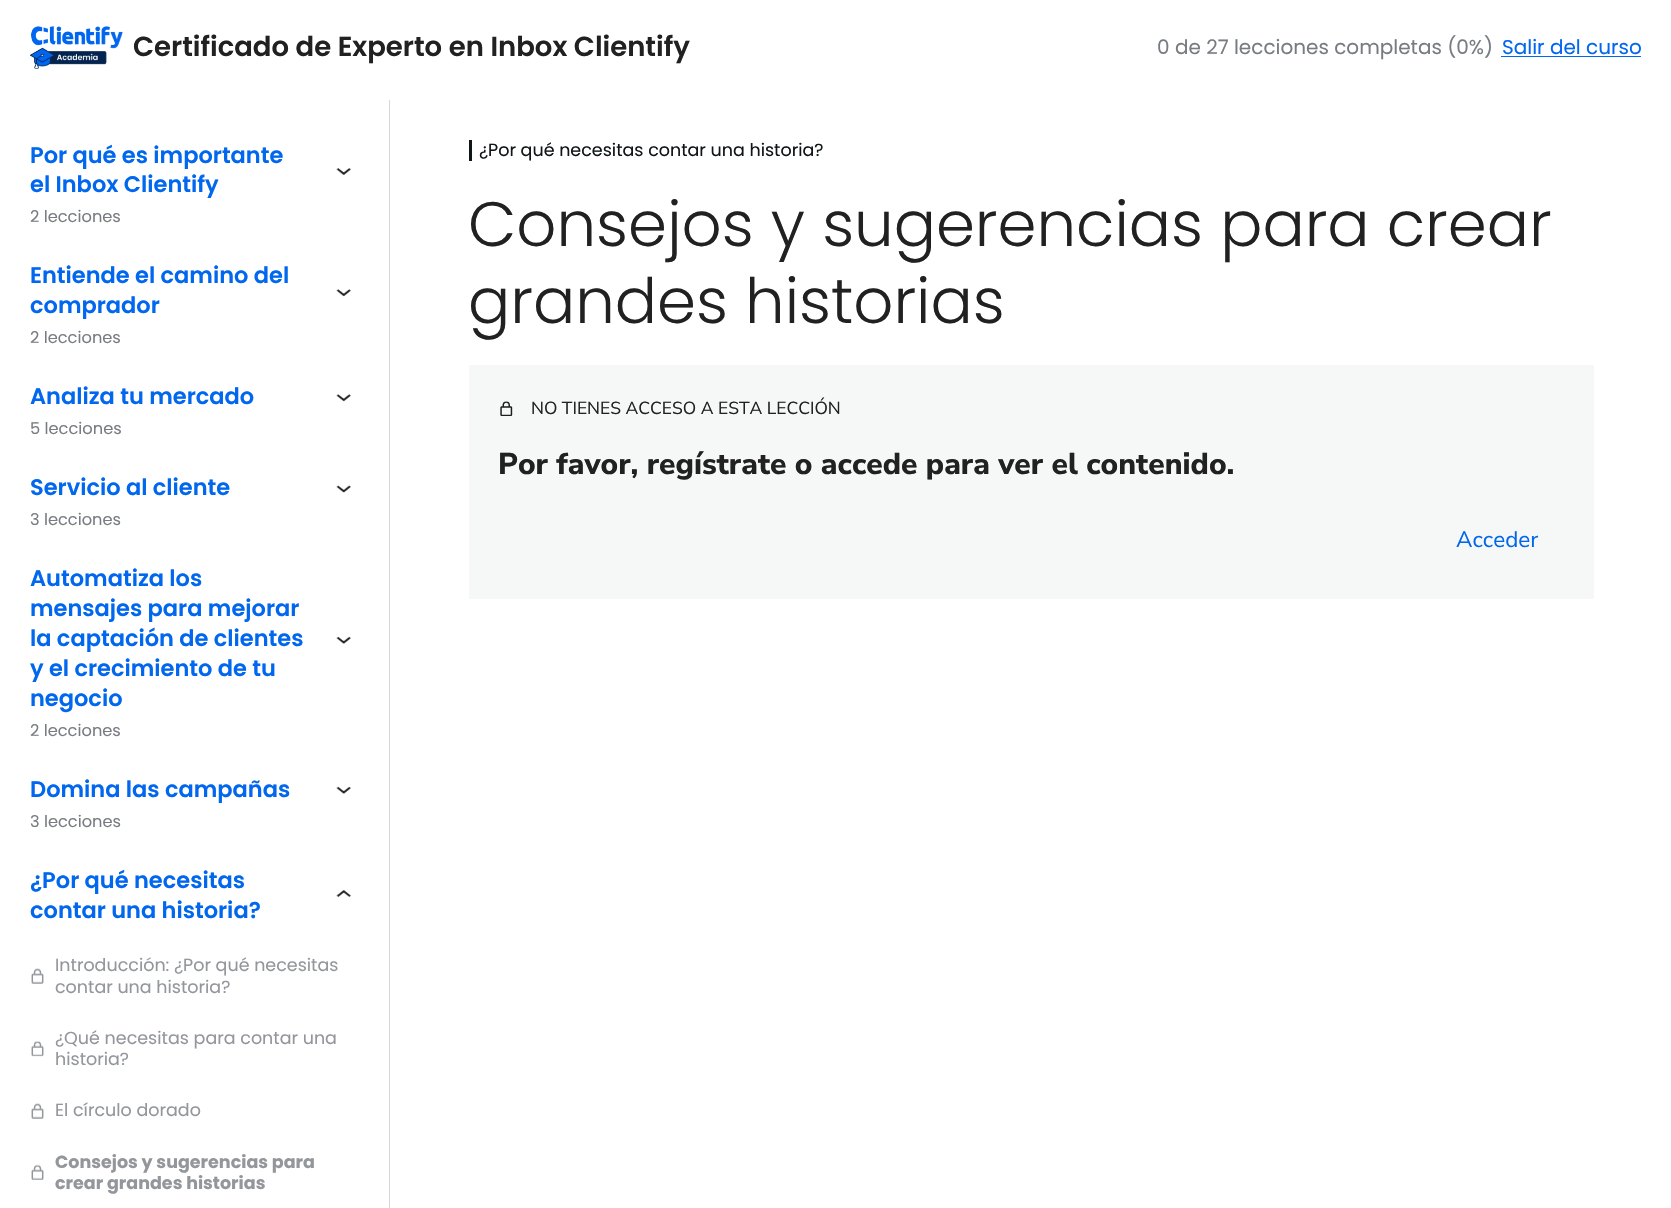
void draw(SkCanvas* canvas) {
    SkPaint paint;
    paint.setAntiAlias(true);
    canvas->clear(0xFFFFFFFF);
    canvas->drawImageRect(SkImages::DeferredFromEncodedData(SkData::MakeFromFileName("img1.png")), SkRect::MakeXYWH(30, 26, 93, 43), SkSamplingOptions());
    SkFont font1(fontMgr->matchFamilyStyle("Poppins", SkFontStyle(600, SkFontStyle::kNormal_Width, SkFontStyle::kUpright_Slant)), 27.5f);
    font1.setSubpixel(true);
    paint.setColor(0xFF212121);
    canvas->drawString("Certificado de Experto en Inbox Clientify", 133, 56, font1, paint);
    SkFont font2(fontMgr->matchFamilyStyle("Poppins", SkFontStyle::Normal()), 20);
    font2.setSubpixel(true);
    paint.setColor(0xFF787C82);
    canvas->drawString("0 de 27 lecciones completas (0%)", 1157, 54, font2, paint);
    paint.setColor(0xFF0067EE);
    canvas->drawString("Salir del curso", 1502, 54, font2, paint);
    canvas->drawRect(SkRect::MakeXYWH(1501, 56, 140, 1), paint);
    paint.setColor(0xFFD8D8D8);
    canvas->drawRect(SkRect::MakeXYWH(389, 100, 1, 1108), paint);
    SkFont font3(fontMgr->matchFamilyStyle("Poppins", SkFontStyle(600, SkFontStyle::kNormal_Width, SkFontStyle::kUpright_Slant)), 22.5f);
    font3.setSubpixel(true);
    paint.setColor(0xFF0067EE);
    canvas->drawString("Por qué es importante", 30, 163, font3, paint);
    canvas->drawString("el Inbox Clientify", 30, 192, font3, paint);
    canvas->drawImageRect(SkImages::DeferredFromEncodedData(SkData::MakeFromFileName("img2.png")), SkRect::MakeXYWH(336, 168, 15, 7), SkSamplingOptions());
    SkFont font4(fontMgr->matchFamilyStyle("Poppins", SkFontStyle::Normal()), 16.25f);
    font4.setSubpixel(true);
    paint.setColor(0xFF787C82);
    canvas->drawString("2 lecciones", 30, 222, font4, paint);
    paint.setColor(0xFF0067EE);
    canvas->drawString("Entiende el camino del", 30, 283, font3, paint);
    canvas->drawString("comprador", 30, 313, font3, paint);
    canvas->drawImageRect(SkImages::DeferredFromEncodedData(SkData::MakeFromFileName("img3.png")), SkRect::MakeXYWH(336, 289, 15, 8), SkSamplingOptions());
    paint.setColor(0xFF787C82);
    canvas->drawString("2 lecciones", 30, 343, font4, paint);
    paint.setColor(0xFF0067EE);
    canvas->drawString("Analiza tu mercado", 30, 404, font3, paint);
    canvas->drawImageRect(SkImages::DeferredFromEncodedData(SkData::MakeFromFileName("img3.png")), SkRect::MakeXYWH(336, 394, 15, 8), SkSamplingOptions());
    paint.setColor(0xFF787C82);
    canvas->drawString("5 lecciones", 30, 434, font4, paint);
    paint.setColor(0xFF0067EE);
    canvas->drawString("Servicio al cliente", 30, 495, font3, paint);
    canvas->drawImageRect(SkImages::DeferredFromEncodedData(SkData::MakeFromFileName("img4.png")), SkRect::MakeXYWH(336, 485, 15, 8), SkSamplingOptions());
    paint.setColor(0xFF787C82);
    canvas->drawString("3 lecciones", 30, 525, font4, paint);
    paint.setColor(0xFF0067EE);
    canvas->drawString("Automatiza los", 30, 586, font3, paint);
    canvas->drawString("mensajes para mejorar", 30, 616, font3, paint);
    canvas->drawString("la captación de clientes", 30, 646, font3, paint);
    canvas->drawString("y el crecimiento de tu", 30, 676, font3, paint);
    canvas->drawString("negocio", 30, 706, font3, paint);
    canvas->drawImageRect(SkImages::DeferredFromEncodedData(SkData::MakeFromFileName("img5.png")), SkRect::MakeXYWH(336, 636, 15, 8), SkSamplingOptions());
    paint.setColor(0xFF787C82);
    canvas->drawString("2 lecciones", 30, 736, font4, paint);
    paint.setColor(0xFF0067EE);
    canvas->drawString("Domina las campañas", 30, 797, font3, paint);
    canvas->drawImageRect(SkImages::DeferredFromEncodedData(SkData::MakeFromFileName("img5.png")), SkRect::MakeXYWH(336, 786, 15, 8), SkSamplingOptions());
    paint.setColor(0xFF787C82);
    canvas->drawString("3 lecciones", 30, 827, font4, paint);
    paint.setColor(0xFF0067EE);
    canvas->drawString("¿Por qué necesitas", 30, 888, font3, paint);
    canvas->drawString("contar una historia?", 30, 918, font3, paint);
    canvas->drawImageRect(SkImages::DeferredFromEncodedData(SkData::MakeFromFileName("img6.png")), SkRect::MakeXYWH(336, 890, 15, 7), SkSamplingOptions());
    canvas->drawImageRect(SkImages::DeferredFromEncodedData(SkData::MakeFromFileName("img7.png")), SkRect::MakeXYWH(31, 968, 13, 16), SkSamplingOptions());
    SkFont font5(fontMgr->matchFamilyStyle("Poppins", SkFontStyle::Normal()), 17.5f);
    font5.setSubpixel(true);
    paint.setColor(0xFF93969B);
    canvas->drawString("Introducción: ¿Por qué necesitas", 55, 971, font5, paint);
    canvas->drawString("contar una historia?", 55, 993, font5, paint);
    canvas->drawImageRect(SkImages::DeferredFromEncodedData(SkData::MakeFromFileName("img8.png")), SkRect::MakeXYWH(31, 1041, 13, 16), SkSamplingOptions());
    canvas->drawString("¿Qué necesitas para contar una", 55, 1044, font5, paint);
    canvas->drawString("historia?", 55, 1065, font5, paint);
    canvas->drawImageRect(SkImages::DeferredFromEncodedData(SkData::MakeFromFileName("img9.png")), SkRect::MakeXYWH(31, 1103, 13, 16), SkSamplingOptions());
    canvas->drawString("El círculo dorado", 55, 1116, font5, paint);
    canvas->drawImageRect(SkImages::DeferredFromEncodedData(SkData::MakeFromFileName("img10.png")), SkRect::MakeXYWH(31, 1164, 13, 16), SkSamplingOptions());
    SkFont font6(fontMgr->matchFamilyStyle("Poppins", SkFontStyle::Bold()), 17.5f);
    font6.setSubpixel(true);
    canvas->drawString("Consejos y sugerencias para", 55, 1168, font6, paint);
    canvas->drawString("crear grandes historias", 55, 1189, font6, paint);
    paint.setColor(0xFF101517);
    canvas->drawRect(SkRect::MakeXYWH(469, 140, 3, 21), paint);
    canvas->drawString("¿Por qué necesitas contar una historia?", 479, 156, font5, paint);
    SkFont font7(fontMgr->matchFamilyStyle("Poppins", SkFontStyle(300, SkFontStyle::kNormal_Width, SkFontStyle::kUpright_Slant)), 62.6f);
    font7.setSubpixel(true);
    paint.setColor(0xFF212121);
    canvas->drawString("Consejos y sugerencias para crear", 468, 246, font7, paint);
    canvas->drawString("grandes historias", 468, 323, font7, paint);
    paint.setColor(0xFFF6F7F7);
    canvas->drawRect(SkRect::MakeXYWH(469, 365, 1125, 234), paint);
    canvas->drawImageRect(SkImages::DeferredFromEncodedData(SkData::MakeFromFileName("img11.png")), SkRect::MakeXYWH(500, 401, 13, 15), SkSamplingOptions());
    SkFont font8(fontMgr->matchFamilyStyle("Nunito Sans", SkFontStyle::Normal()), 17.5f);
    font8.setSubpixel(true);
    paint.setColor(0xFF212121);
    canvas->drawString("NO TIENES ACCESO A ESTA LECCIÓN", 531, 414, font8, paint);
    SkFont font9(fontMgr->matchFamilyStyle("Nunito Sans", SkFontStyle(800, SkFontStyle::kNormal_Width, SkFontStyle::kUpright_Slant)), 30);
    font9.setSubpixel(true);
    canvas->drawString("Por favor, regístrate o accede para ver el contenido.", 498, 474, font9, paint);
    SkFont font10(fontMgr->matchFamilyStyle("Nunito Sans", SkFontStyle::Normal()), 22.5f);
    font10.setSubpixel(true);
    paint.setColor(0xFF0067EE);
    canvas->drawString("Acceder", 1456, 547, font10, paint);
}
